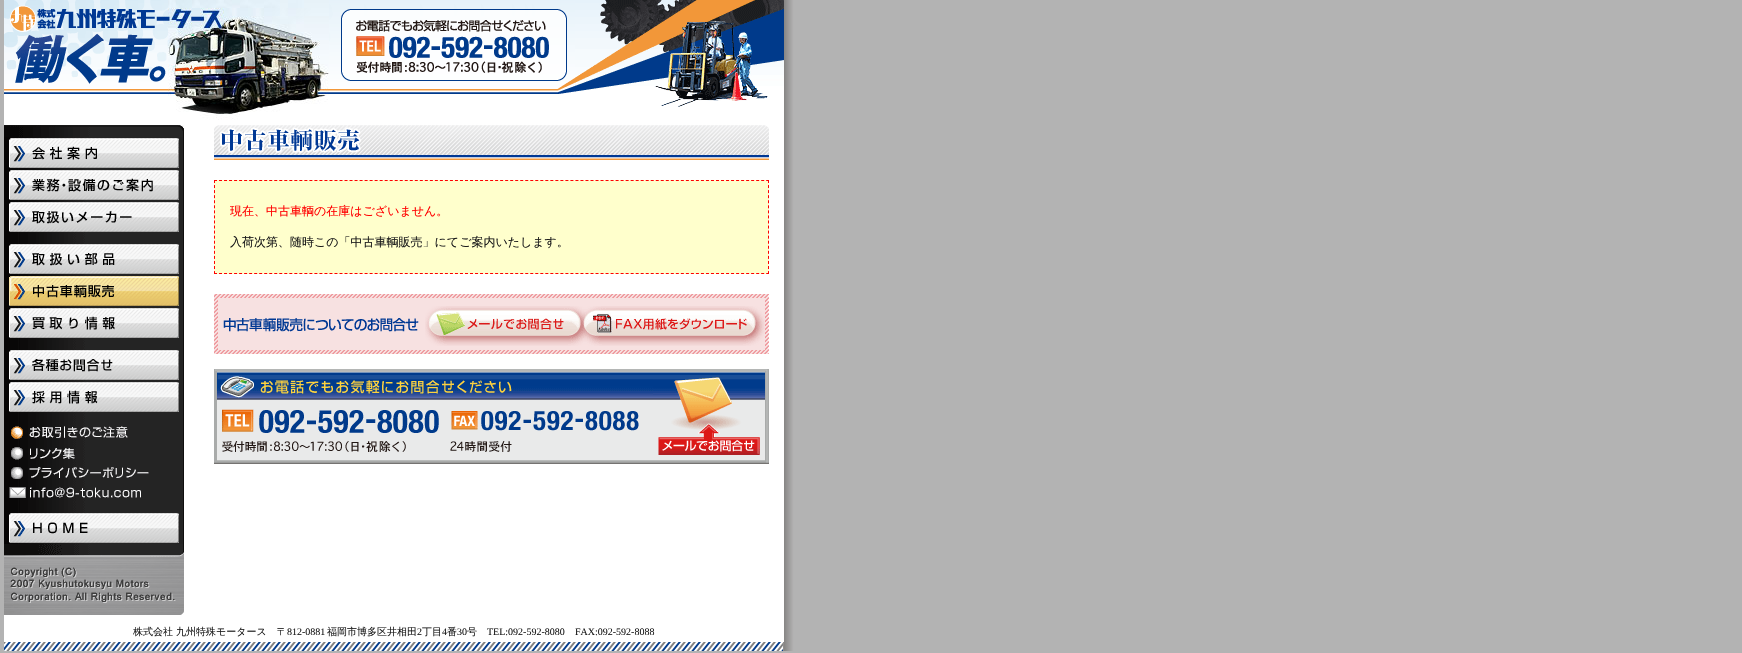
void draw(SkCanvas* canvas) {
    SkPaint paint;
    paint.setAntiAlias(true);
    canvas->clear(0xFFB3B3B3);
    canvas->drawImageRect(SkImages::DeferredFromEncodedData(SkData::MakeFromFileName("img1.png")), SkRect::MakeXYWH(784, 0, 10, 651), SkSamplingOptions());
    paint.setColor(0xFFFFFFFF);
    canvas->drawRect(SkRect::MakeXYWH(4, 94, 780, 548), paint);
    canvas->drawImageRect(SkImages::DeferredFromEncodedData(SkData::MakeFromFileName("img2.png")), SkRect::MakeXYWH(4, 0, 164, 94), SkSamplingOptions());
    canvas->drawImageRect(SkImages::DeferredFromEncodedData(SkData::MakeFromFileName("img3.png")), SkRect::MakeXYWH(168, 0, 161, 120), SkSamplingOptions());
    canvas->drawImageRect(SkImages::DeferredFromEncodedData(SkData::MakeFromFileName("img4.png")), SkRect::MakeXYWH(329, 0, 246, 94), SkSamplingOptions());
    canvas->drawImageRect(SkImages::DeferredFromEncodedData(SkData::MakeFromFileName("img5.png")), SkRect::MakeXYWH(575, 0, 209, 107), SkSamplingOptions());
    canvas->drawImageRect(SkImages::DeferredFromEncodedData(SkData::MakeFromFileName("img6.png")), SkRect::MakeXYWH(4, 137, 180, 407), SkSamplingOptions());
    canvas->drawImageRect(SkImages::DeferredFromEncodedData(SkData::MakeFromFileName("img7.png")), SkRect::MakeXYWH(4, 125, 180, 12), SkSamplingOptions());
    canvas->drawImageRect(SkImages::DeferredFromEncodedData(SkData::MakeFromFileName("img8.png")), SkRect::MakeXYWH(9, 138, 170, 30), SkSamplingOptions());
    canvas->drawImageRect(SkImages::DeferredFromEncodedData(SkData::MakeFromFileName("img9.png")), SkRect::MakeXYWH(9, 170, 170, 30), SkSamplingOptions());
    canvas->drawImageRect(SkImages::DeferredFromEncodedData(SkData::MakeFromFileName("img10.png")), SkRect::MakeXYWH(9, 202, 170, 30), SkSamplingOptions());
    canvas->drawImageRect(SkImages::DeferredFromEncodedData(SkData::MakeFromFileName("img11.png")), SkRect::MakeXYWH(9, 244, 170, 30), SkSamplingOptions());
    canvas->drawImageRect(SkImages::DeferredFromEncodedData(SkData::MakeFromFileName("img12.png")), SkRect::MakeXYWH(9, 276, 170, 30), SkSamplingOptions());
    canvas->drawImageRect(SkImages::DeferredFromEncodedData(SkData::MakeFromFileName("img13.png")), SkRect::MakeXYWH(9, 308, 170, 30), SkSamplingOptions());
    canvas->drawImageRect(SkImages::DeferredFromEncodedData(SkData::MakeFromFileName("img14.png")), SkRect::MakeXYWH(9, 350, 170, 30), SkSamplingOptions());
    canvas->drawImageRect(SkImages::DeferredFromEncodedData(SkData::MakeFromFileName("img15.png")), SkRect::MakeXYWH(9, 382, 170, 30), SkSamplingOptions());
    canvas->drawImageRect(SkImages::DeferredFromEncodedData(SkData::MakeFromFileName("img16.png")), SkRect::MakeXYWH(11, 426, 117, 13), SkSamplingOptions());
    canvas->drawImageRect(SkImages::DeferredFromEncodedData(SkData::MakeFromFileName("img17.png")), SkRect::MakeXYWH(11, 447, 64, 13), SkSamplingOptions());
    canvas->drawImageRect(SkImages::DeferredFromEncodedData(SkData::MakeFromFileName("img18.png")), SkRect::MakeXYWH(11, 467, 138, 12), SkSamplingOptions());
    canvas->drawImageRect(SkImages::DeferredFromEncodedData(SkData::MakeFromFileName("img19.png")), SkRect::MakeXYWH(9, 487, 132, 11), SkSamplingOptions());
    canvas->drawImageRect(SkImages::DeferredFromEncodedData(SkData::MakeFromFileName("img20.png")), SkRect::MakeXYWH(9, 513, 170, 30), SkSamplingOptions());
    canvas->drawImageRect(SkImages::DeferredFromEncodedData(SkData::MakeFromFileName("img21.png")), SkRect::MakeXYWH(4, 544, 180, 71), SkSamplingOptions());
    canvas->drawImageRect(SkImages::DeferredFromEncodedData(SkData::MakeFromFileName("img22.png")), SkRect::MakeXYWH(214, 125, 555, 35), SkSamplingOptions());
    paint.setColor(0xFFFFFFCC);
    canvas->drawRect(SkRect::MakeXYWH(214, 180, 555, 94), paint);
    paint.setStyle(SkPaint::kStroke_Style);
    paint.setStrokeWidth(1);
    paint.setColor(0xFFFF0000);
    paint.setPathEffect(SkDashPathEffect::Make({{3, 2.02f}}, 0));
    canvas->drawPath(SkPathBuilder().moveTo(214, 180.5f).lineTo(769, 180.5f).detach(), paint);
    paint.setPathEffect(nullptr);
    paint.setPathEffect(SkDashPathEffect::Make({{3, 2.06f}}, 0));
    canvas->drawPath(SkPathBuilder().moveTo(768.5f, 180).lineTo(768.5f, 274).detach(), paint);
    paint.setPathEffect(nullptr);
    paint.setPathEffect(SkDashPathEffect::Make({{3, 2.02f}}, 0));
    canvas->drawPath(SkPathBuilder().moveTo(214, 273.5f).lineTo(769, 273.5f).detach(), paint);
    paint.setPathEffect(nullptr);
    paint.setPathEffect(SkDashPathEffect::Make({{3, 2.06f}}, 0));
    canvas->drawPath(SkPathBuilder().moveTo(214.5f, 180).lineTo(214.5f, 274).detach(), paint);
    paint.setPathEffect(nullptr);
    SkFont font1(fontMgr->matchFamilyStyle("WenQuanYi Zen Hei", SkFontStyle(500, SkFontStyle::kNormal_Width, SkFontStyle::kUpright_Slant)), 12);
    font1.setSubpixel(true);
    paint.setStyle(SkPaint::kFill_Style);
    canvas->drawString("現在、中古車輌の在庫はございません。", 230, 215, font1, paint);
    paint.setColor(0xFF1A1A1A);
    canvas->drawString("入荷次第、随時この「中古車輌販売」にてご案内いたします。", 230, 246, font1, paint);
    canvas->drawImageRect(SkImages::DeferredFromEncodedData(SkData::MakeFromFileName("img23.png")), SkRect::MakeXYWH(214, 294, 555, 60), SkSamplingOptions());
    canvas->drawImageRect(SkImages::DeferredFromEncodedData(SkData::MakeFromFileName("img24.png")), SkRect::MakeXYWH(223, 318, 196, 14), SkSamplingOptions());
    canvas->drawImageRect(SkImages::DeferredFromEncodedData(SkData::MakeFromFileName("img25.png")), SkRect::MakeXYWH(425, 306, 157, 40), SkSamplingOptions());
    canvas->drawImageRect(SkImages::DeferredFromEncodedData(SkData::MakeFromFileName("img26.png")), SkRect::MakeXYWH(582, 306, 183, 40), SkSamplingOptions());
    canvas->drawImageRect(SkImages::DeferredFromEncodedData(SkData::MakeFromFileName("img27.png")), SkRect::MakeXYWH(214, 369, 555, 95), SkSamplingOptions());
    canvas->drawImageRect(SkImages::DeferredFromEncodedData(SkData::MakeFromFileName("img28.png")), SkRect::MakeXYWH(217, 376, 436, 22), SkSamplingOptions());
    canvas->drawImageRect(SkImages::DeferredFromEncodedData(SkData::MakeFromFileName("img29.png")), SkRect::MakeXYWH(653, 372, 113, 83), SkSamplingOptions());
    canvas->drawImageRect(SkImages::DeferredFromEncodedData(SkData::MakeFromFileName("img30.png")), SkRect::MakeXYWH(222, 409, 217, 43), SkSamplingOptions());
    canvas->drawImageRect(SkImages::DeferredFromEncodedData(SkData::MakeFromFileName("img31.png")), SkRect::MakeXYWH(451, 411, 188, 20), SkSamplingOptions());
    canvas->drawImageRect(SkImages::DeferredFromEncodedData(SkData::MakeFromFileName("img32.png")), SkRect::MakeXYWH(450, 441, 62, 11), SkSamplingOptions());
    SkFont font2(fontMgr->matchFamilyStyle("WenQuanYi Zen Hei", SkFontStyle(500, SkFontStyle::kNormal_Width, SkFontStyle::kUpright_Slant)), 10);
    font2.setSubpixel(true);
    canvas->drawString("株式会社 九州特殊モータース　〒", 133, 635, font2, paint);
    SkFont font3(fontMgr->matchFamilyStyle("Liberation Serif", SkFontStyle::Normal()), 10);
    font3.setSubpixel(true);
    canvas->drawString("812-0881", 287, 635, font3, paint);
    canvas->drawString("福岡市博多区井相田", 327, 635, font2, paint);
    canvas->drawString("2", 417, 635, font3, paint);
    canvas->drawString("丁目", 422, 635, font2, paint);
    canvas->drawString("4", 442, 635, font3, paint);
    canvas->drawString("番", 447, 635, font2, paint);
    canvas->drawString("30", 457, 635, font3, paint);
    canvas->drawString("号", 467, 635, font2, paint);
    canvas->drawString("TEL:092-592-8080", 487, 635, font3, paint);
    canvas->drawString("FAX:092-592-8088", 575, 635, font3, paint);
    canvas->drawImageRect(SkImages::DeferredFromEncodedData(SkData::MakeFromFileName("img33.png")), SkRect::MakeXYWH(4, 642, 780, 9), SkSamplingOptions());
}
